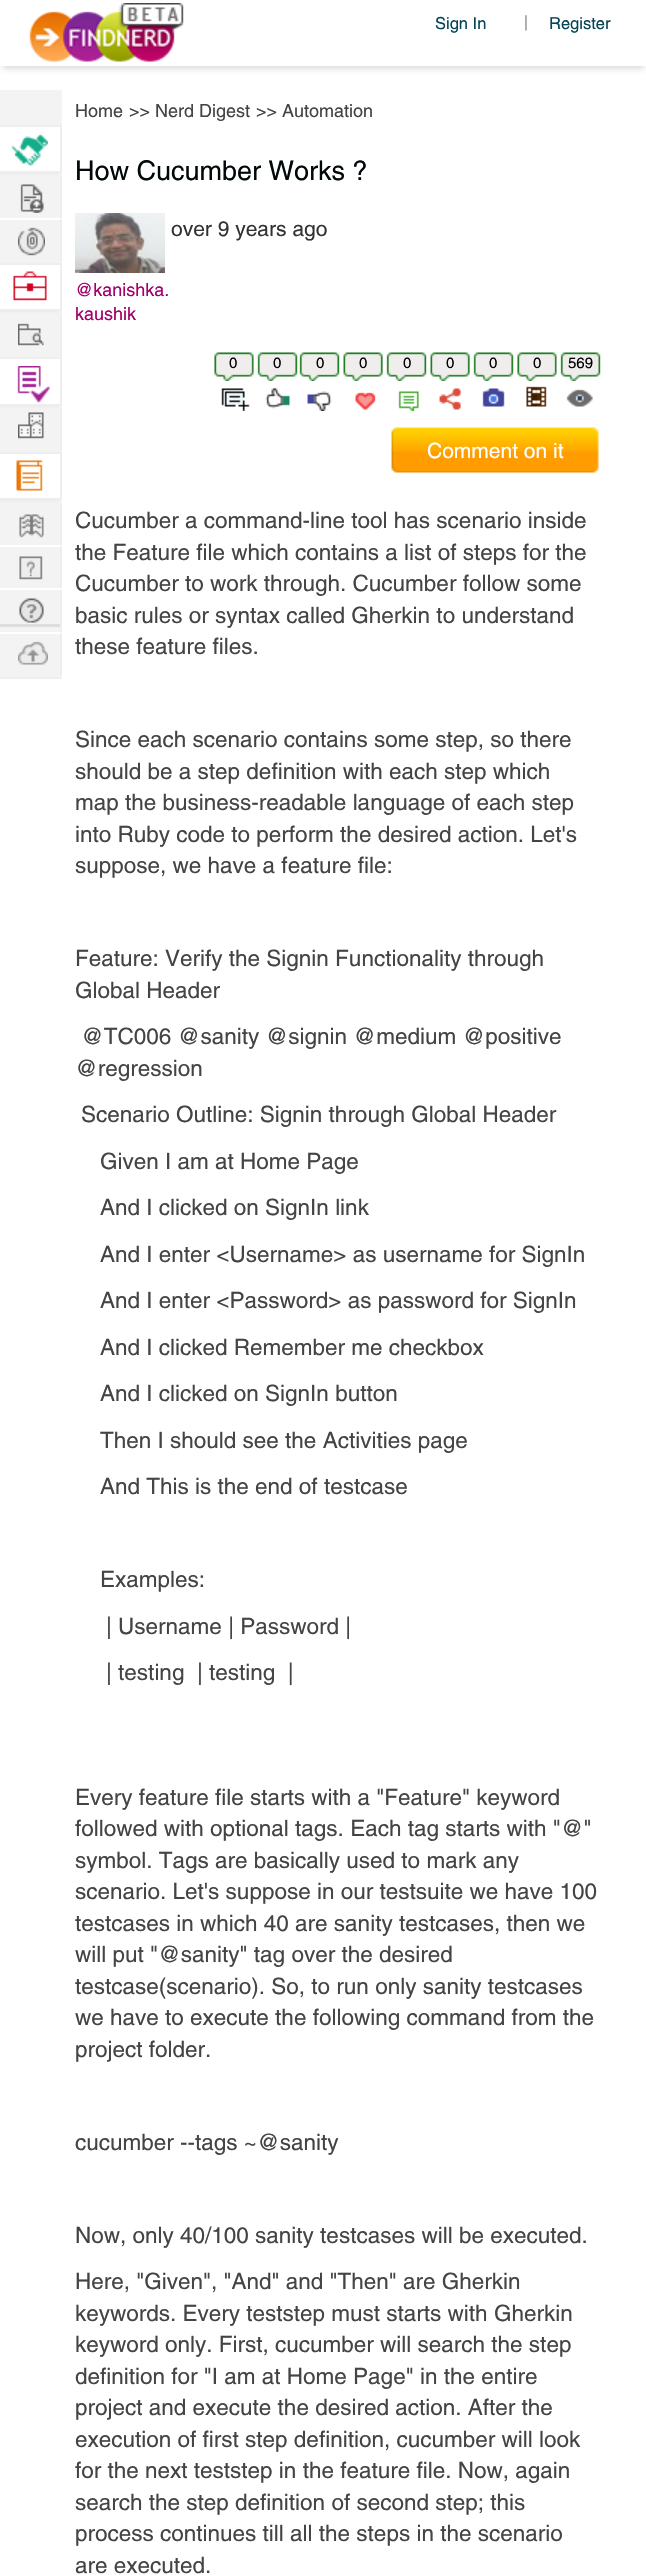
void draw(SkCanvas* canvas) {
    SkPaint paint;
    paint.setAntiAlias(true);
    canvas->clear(0xFFFFFFFF);
    canvas->save();
    canvas->clipRect(SkRect::MakeXYWH(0, 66, 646, 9));
    paint.setColor(0xFFDDDDDD);
    paint.setMaskFilter(SkMaskFilter::MakeBlur(kNormal_SkBlurStyle, 3));
    canvas->drawRect(SkRect::MakeXYWH(3, 9, 641, 60), paint);
    paint.setMaskFilter(nullptr);
    canvas->restore();
    canvas->drawImageRect(SkImages::DeferredFromEncodedData(SkData::MakeFromFileName("img1.png")), SkRect::MakeXYWH(29, 3, 155, 59), SkSamplingOptions());
    SkFont font1(fontMgr->matchFamilyStyle("Helvetica", SkFontStyle::Normal()), 16.5f);
    font1.setSubpixel(true);
    paint.setColor(0xFF074456);
    canvas->drawString("Sign In", 435, 29, font1, paint);
    SkFont font2(fontMgr->matchFamilyStyle("Helvetica", SkFontStyle::Normal()), 15);
    font2.setSubpixel(true);
    paint.setColor(0xFF828282);
    canvas->drawString("|", 524, 27, font2, paint);
    paint.setColor(0xFF074456);
    canvas->drawString("Register", 549, 29, font1, paint);
    paint.setColor(0xFFF3F3F3);
    canvas->drawRect(SkRect::MakeXYWH(0, 90, 62, 585), paint);
    paint.setColor(0xFFEEEEEE);
    canvas->drawRect(SkRect::MakeXYWH(0, 677, 62, 2), paint);
    paint.setColor(0x80DDDDDD);
    paint.setMaskFilter(SkMaskFilter::MakeBlur(kNormal_SkBlurStyle, 1));
    canvas->drawRect(SkRect::MakeXYWH(-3, 126, 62, 48), paint);
    paint.setMaskFilter(nullptr);
    paint.setColor(0xFFFFFFFF);
    canvas->drawRect(SkRect::MakeXYWH(0, 127, 60, 44), paint);
    paint.setColor(0xFFEEEEEE);
    canvas->drawRect(SkRect::MakeXYWH(0, 125, 62, 2), paint);
    canvas->drawRect(SkRect::MakeXYWH(60, 125, 2, 48), paint);
    canvas->drawRect(SkRect::MakeXYWH(0, 171, 62, 2), paint);
    canvas->drawImageRect(SkImages::DeferredFromEncodedData(SkData::MakeFromFileName("img2.png")), SkRect::MakeXYWH(11, 134, 37, 32), SkSamplingOptions());
    canvas->drawRect(SkRect::MakeXYWH(60, 176, 2, 43), paint);
    paint.setColor(0xFFFFFFFF);
    canvas->drawRect(SkRect::MakeXYWH(0, 218, 62, 2), paint);
    canvas->drawImageRect(SkImages::DeferredFromEncodedData(SkData::MakeFromFileName("img3.png")), SkRect::MakeXYWH(20, 184, 24, 29), SkSamplingOptions());
    paint.setColor(0xFFEEEEEE);
    canvas->drawRect(SkRect::MakeXYWH(60, 219, 2, 44), paint);
    paint.setColor(0xFFF3F3F3);
    canvas->drawRect(SkRect::MakeXYWH(60, 261, 2, 2), paint);
    canvas->drawImageRect(SkImages::DeferredFromEncodedData(SkData::MakeFromFileName("img4.png")), SkRect::MakeXYWH(18, 227, 27, 29), SkSamplingOptions());
    paint.setColor(0x80DDDDDD);
    paint.setMaskFilter(SkMaskFilter::MakeBlur(kNormal_SkBlurStyle, 1));
    canvas->drawRect(SkRect::MakeXYWH(-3, 264, 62, 48), paint);
    paint.setMaskFilter(nullptr);
    paint.setColor(0xFFFFFFFF);
    canvas->drawRect(SkRect::MakeXYWH(0, 265, 60, 44), paint);
    paint.setColor(0xFFEEEEEE);
    canvas->drawRect(SkRect::MakeXYWH(0, 263, 62, 2), paint);
    canvas->drawRect(SkRect::MakeXYWH(60, 263, 2, 48), paint);
    canvas->drawRect(SkRect::MakeXYWH(0, 309, 62, 2), paint);
    canvas->drawImageRect(SkImages::DeferredFromEncodedData(SkData::MakeFromFileName("img5.png")), SkRect::MakeXYWH(13, 271, 34, 30), SkSamplingOptions());
    canvas->drawRect(SkRect::MakeXYWH(60, 314, 2, 43), paint);
    paint.setColor(0xFFF3F3F3);
    canvas->drawRect(SkRect::MakeXYWH(60, 356, 2, 1), paint);
    canvas->drawImageRect(SkImages::DeferredFromEncodedData(SkData::MakeFromFileName("img6.png")), SkRect::MakeXYWH(18, 323, 26, 23), SkSamplingOptions());
    paint.setColor(0x80DDDDDD);
    paint.setMaskFilter(SkMaskFilter::MakeBlur(kNormal_SkBlurStyle, 1));
    canvas->drawRect(SkRect::MakeXYWH(-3, 359, 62, 48), paint);
    paint.setMaskFilter(nullptr);
    paint.setColor(0xFFFFFFFF);
    canvas->drawRect(SkRect::MakeXYWH(0, 359, 60, 45), paint);
    paint.setColor(0xFFEEEEEE);
    canvas->drawRect(SkRect::MakeXYWH(0, 357, 62, 2), paint);
    canvas->drawRect(SkRect::MakeXYWH(60, 357, 2, 48), paint);
    canvas->drawRect(SkRect::MakeXYWH(0, 404, 62, 2), paint);
    canvas->drawImageRect(SkImages::DeferredFromEncodedData(SkData::MakeFromFileName("img7.png")), SkRect::MakeXYWH(17, 366, 33, 37), SkSamplingOptions());
    canvas->drawRect(SkRect::MakeXYWH(60, 408, 2, 44), paint);
    paint.setColor(0xFFF3F3F3);
    canvas->drawRect(SkRect::MakeXYWH(60, 450, 2, 2), paint);
    canvas->drawImageRect(SkImages::DeferredFromEncodedData(SkData::MakeFromFileName("img8.png")), SkRect::MakeXYWH(18, 412, 26, 27), SkSamplingOptions());
    paint.setColor(0x80DDDDDD);
    paint.setMaskFilter(SkMaskFilter::MakeBlur(kNormal_SkBlurStyle, 1));
    canvas->drawRect(SkRect::MakeXYWH(-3, 453, 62, 48), paint);
    paint.setMaskFilter(nullptr);
    paint.setColor(0xFFFFFFFF);
    canvas->drawRect(SkRect::MakeXYWH(0, 454, 60, 44), paint);
    paint.setColor(0xFFEEEEEE);
    canvas->drawRect(SkRect::MakeXYWH(0, 452, 62, 2), paint);
    canvas->drawRect(SkRect::MakeXYWH(60, 452, 2, 48), paint);
    canvas->drawRect(SkRect::MakeXYWH(0, 498, 62, 2), paint);
    canvas->drawImageRect(SkImages::DeferredFromEncodedData(SkData::MakeFromFileName("img9.png")), SkRect::MakeXYWH(16, 459, 27, 32), SkSamplingOptions());
    canvas->drawRect(SkRect::MakeXYWH(60, 503, 2, 43), paint);
    paint.setColor(0xFFFFFFFF);
    canvas->drawRect(SkRect::MakeXYWH(0, 545, 62, 2), paint);
    canvas->drawImageRect(SkImages::DeferredFromEncodedData(SkData::MakeFromFileName("img10.png")), SkRect::MakeXYWH(19, 514, 25, 24), SkSamplingOptions());
    paint.setColor(0xFFEEEEEE);
    canvas->drawRect(SkRect::MakeXYWH(60, 546, 2, 87), paint);
    paint.setColor(0xFFFFFFFF);
    canvas->drawRect(SkRect::MakeXYWH(0, 588, 62, 2), paint);
    canvas->drawImageRect(SkImages::DeferredFromEncodedData(SkData::MakeFromFileName("img11.png")), SkRect::MakeXYWH(19, 556, 24, 24), SkSamplingOptions());
    canvas->drawRect(SkRect::MakeXYWH(0, 632, 62, 2), paint);
    paint.setColor(0xFFDDDDDD);
    canvas->drawRect(SkRect::MakeXYWH(0, 624, 60, 3), paint);
    canvas->drawImageRect(SkImages::DeferredFromEncodedData(SkData::MakeFromFileName("img12.png")), SkRect::MakeXYWH(19, 598, 25, 25), SkSamplingOptions());
    paint.setColor(0xFFEEEEEE);
    canvas->drawRect(SkRect::MakeXYWH(60, 633, 2, 44), paint);
    paint.setColor(0xFFF3F3F3);
    canvas->drawRect(SkRect::MakeXYWH(0, 675, 62, 2), paint);
    canvas->drawImageRect(SkImages::DeferredFromEncodedData(SkData::MakeFromFileName("img13.png")), SkRect::MakeXYWH(18, 641, 30, 24), SkSamplingOptions());
    SkFont font3(fontMgr->matchFamilyStyle("Helvetica", SkFontStyle::Normal()), 18);
    font3.setSubpixel(true);
    paint.setColor(0xFF444444);
    canvas->drawString("Home", 75, 117, font3, paint);
    canvas->drawString(">> Nerd Digest", 129, 117, font3, paint);
    canvas->drawString(">> Automation", 256, 117, font3, paint);
    SkFont font4(fontMgr->matchFamilyStyle("Helvetica", SkFontStyle::Normal()), 27);
    font4.setSubpixel(true);
    paint.setColor(0xFF01080A);
    canvas->drawString("How Cucumber Works ?", 75, 180, font4, paint);
    SkFont font5(fontMgr->matchFamilyStyle("Helvetica", SkFontStyle::Normal()), 21);
    font5.setSubpixel(true);
    paint.setColor(0xFF333333);
    canvas->drawString("over 9 years ago", 171, 236, font5, paint);
    canvas->drawImageRect(SkImages::DeferredFromEncodedData(SkData::MakeFromFileName("img14.png")), SkRect::MakeXYWH(75, 213, 90, 60), SkSamplingOptions());
    paint.setColor(0xFFA1006B);
    canvas->drawString("@kanishka.", 75, 296, font3, paint);
    canvas->drawString("kaushik", 75, 320, font3, paint);
    canvas->drawImageRect(SkImages::DeferredFromEncodedData(SkData::MakeFromFileName("img15.png")), SkRect::MakeXYWH(214, 352, 40, 29), SkSamplingOptions());
    paint.setColor(0xFF000000);
    canvas->drawString("0", 229, 368, font2, paint);
    canvas->drawImageRect(SkImages::DeferredFromEncodedData(SkData::MakeFromFileName("img16.png")), SkRect::MakeXYWH(221, 388, 29, 23), SkSamplingOptions());
    canvas->drawImageRect(SkImages::DeferredFromEncodedData(SkData::MakeFromFileName("img17.png")), SkRect::MakeXYWH(257, 352, 41, 29), SkSamplingOptions());
    canvas->drawString("0", 273, 368, font2, paint);
    canvas->drawImageRect(SkImages::DeferredFromEncodedData(SkData::MakeFromFileName("img18.png")), SkRect::MakeXYWH(265, 387, 25, 22), SkSamplingOptions());
    canvas->drawImageRect(SkImages::DeferredFromEncodedData(SkData::MakeFromFileName("img19.png")), SkRect::MakeXYWH(299, 352, 41, 29), SkSamplingOptions());
    canvas->drawString("0", 316, 368, font2, paint);
    canvas->drawImageRect(SkImages::DeferredFromEncodedData(SkData::MakeFromFileName("img20.png")), SkRect::MakeXYWH(307, 391, 25, 20), SkSamplingOptions());
    canvas->drawImageRect(SkImages::DeferredFromEncodedData(SkData::MakeFromFileName("img21.png")), SkRect::MakeXYWH(343, 352, 40, 29), SkSamplingOptions());
    canvas->drawString("0", 359, 368, font2, paint);
    canvas->drawImageRect(SkImages::DeferredFromEncodedData(SkData::MakeFromFileName("img22.png")), SkRect::MakeXYWH(355, 392, 21, 18), SkSamplingOptions());
    canvas->drawImageRect(SkImages::DeferredFromEncodedData(SkData::MakeFromFileName("img23.png")), SkRect::MakeXYWH(386, 352, 41, 29), SkSamplingOptions());
    canvas->drawString("0", 403, 368, font2, paint);
    canvas->drawImageRect(SkImages::DeferredFromEncodedData(SkData::MakeFromFileName("img24.png")), SkRect::MakeXYWH(398, 391, 21, 20), SkSamplingOptions());
    canvas->drawImageRect(SkImages::DeferredFromEncodedData(SkData::MakeFromFileName("img21.png")), SkRect::MakeXYWH(430, 352, 40, 29), SkSamplingOptions());
    canvas->drawString("0", 446, 368, font2, paint);
    canvas->drawImageRect(SkImages::DeferredFromEncodedData(SkData::MakeFromFileName("img25.png")), SkRect::MakeXYWH(439, 388, 22, 22), SkSamplingOptions());
    canvas->drawImageRect(SkImages::DeferredFromEncodedData(SkData::MakeFromFileName("img17.png")), SkRect::MakeXYWH(473, 352, 41, 29), SkSamplingOptions());
    canvas->drawString("0", 489, 368, font2, paint);
    canvas->drawImageRect(SkImages::DeferredFromEncodedData(SkData::MakeFromFileName("img26.png")), SkRect::MakeXYWH(482, 388, 23, 19), SkSamplingOptions());
    canvas->drawImageRect(SkImages::DeferredFromEncodedData(SkData::MakeFromFileName("img15.png")), SkRect::MakeXYWH(517, 352, 40, 29), SkSamplingOptions());
    canvas->drawString("0", 533, 368, font2, paint);
    canvas->drawImageRect(SkImages::DeferredFromEncodedData(SkData::MakeFromFileName("img27.png")), SkRect::MakeXYWH(526, 386, 21, 21), SkSamplingOptions());
    canvas->drawImageRect(SkImages::DeferredFromEncodedData(SkData::MakeFromFileName("img23.png")), SkRect::MakeXYWH(560, 352, 41, 29), SkSamplingOptions());
    canvas->drawString("569", 568, 368, font2, paint);
    canvas->drawImageRect(SkImages::DeferredFromEncodedData(SkData::MakeFromFileName("img28.png")), SkRect::MakeXYWH(566, 389, 27, 18), SkSamplingOptions());
    canvas->drawImageRect(SkImages::DeferredFromEncodedData(SkData::MakeFromFileName("img29.png")), SkRect::MakeXYWH(391, 427, 208, 46), SkSamplingOptions());
    paint.setColor(0xFFFFFFFF);
    canvas->drawString("Comment on it", 427, 458, font5, paint);
    SkFont font6(fontMgr->matchFamilyStyle("Helvetica", SkFontStyle::Normal()), 22.5f);
    font6.setSubpixel(true);
    paint.setColor(0xFF444444);
    canvas->drawString("Cucumber a command-line tool has scenario inside", 75, 528, font6, paint);
    canvas->drawString("the Feature file which contains a list of steps for the", 75, 560, font6, paint);
    canvas->drawString("Cucumber to work through. Cucumber follow some", 75, 591, font6, paint);
    canvas->drawString("basic rules or syntax called Gherkin to understand", 75, 623, font6, paint);
    canvas->drawString("these feature files.", 75, 654, font6, paint);
    canvas->drawString("Since each scenario contains some step, so there", 75, 747, font6, paint);
    canvas->drawString("should be a step definition with each step which", 75, 779, font6, paint);
    canvas->drawString("map the business-readable language of each step", 75, 810, font6, paint);
    canvas->drawString("into Ruby code to perform the desired action. Let's", 75, 842, font6, paint);
    canvas->drawString("suppose, we have a feature file:", 75, 873, font6, paint);
    canvas->drawString("Feature: Verify the Signin Functionality through", 75, 966, font6, paint);
    canvas->drawString("Global Header", 75, 998, font6, paint);
    canvas->drawString("@TC006 @sanity @signin @medium @positive", 81, 1044, font6, paint);
    canvas->drawString("@regression", 75, 1076, font6, paint);
    canvas->drawString("Scenario Outline: Signin through Global Header", 81, 1122, font6, paint);
    canvas->drawString("Given I am at Home Page", 100, 1169, font6, paint);
    canvas->drawString("And I clicked on SignIn link", 100, 1215, font6, paint);
    canvas->drawString("And I enter <Username> as username for SignIn", 100, 1262, font6, paint);
    canvas->drawString("And I enter <Password> as password for SignIn", 100, 1308, font6, paint);
    canvas->drawString("And I clicked Remember me checkbox", 100, 1355, font6, paint);
    canvas->drawString("And I clicked on SignIn button", 100, 1401, font6, paint);
    canvas->drawString("Then I should see the Activities page", 100, 1448, font6, paint);
    canvas->drawString("And This is the end of testcase", 100, 1494, font6, paint);
    canvas->drawString("Examples:", 100, 1587, font6, paint);
    canvas->drawString("| Username | Password |", 106, 1634, font6, paint);
    canvas->drawString("| testing  | testing  |", 106, 1680, font6, paint);
    canvas->drawString("Every feature file starts with a \"Feature\" keyword", 75, 1805, font6, paint);
    canvas->drawString("followed with optional tags. Each tag starts with \"@\"", 75, 1836, font6, paint);
    canvas->drawString("symbol. Tags are basically used to mark any", 75, 1868, font6, paint);
    canvas->drawString("scenario. Let's suppose in our testsuite we have 100", 75, 1899, font6, paint);
    canvas->drawString("testcases in which 40 are sanity testcases, then we", 75, 1931, font6, paint);
    canvas->drawString("will put \"@sanity\" tag over the desired", 75, 1962, font6, paint);
    canvas->drawString("testcase(scenario). So, to run only sanity testcases", 75, 1994, font6, paint);
    canvas->drawString("we have to execute the following command from the", 75, 2025, font6, paint);
    canvas->drawString("project folder.", 75, 2057, font6, paint);
    canvas->drawString("cucumber --tags ~@sanity", 75, 2150, font6, paint);
    canvas->drawString("Now, only 40/100 sanity testcases will be executed.", 75, 2243, font6, paint);
    canvas->drawString("Here, \"Given\", \"And\" and \"Then\" are Gherkin", 75, 2289, font6, paint);
    canvas->drawString("keywords. Every teststep must starts with Gherkin", 75, 2321, font6, paint);
    canvas->drawString("keyword only. First, cucumber will search the step", 75, 2352, font6, paint);
    canvas->drawString("definition for \"I am at Home Page\" in the entire", 75, 2384, font6, paint);
    canvas->drawString("project and execute the desired action. After the", 75, 2415, font6, paint);
    canvas->drawString("execution of first step definition, cucumber will look", 75, 2447, font6, paint);
    canvas->drawString("for the next teststep in the feature file. Now, again", 75, 2478, font6, paint);
    canvas->drawString("search the step definition of second step; this", 75, 2510, font6, paint);
    canvas->drawString("process continues till all the steps in the scenario", 75, 2541, font6, paint);
    canvas->drawString("are executed.", 75, 2573, font6, paint);
}
